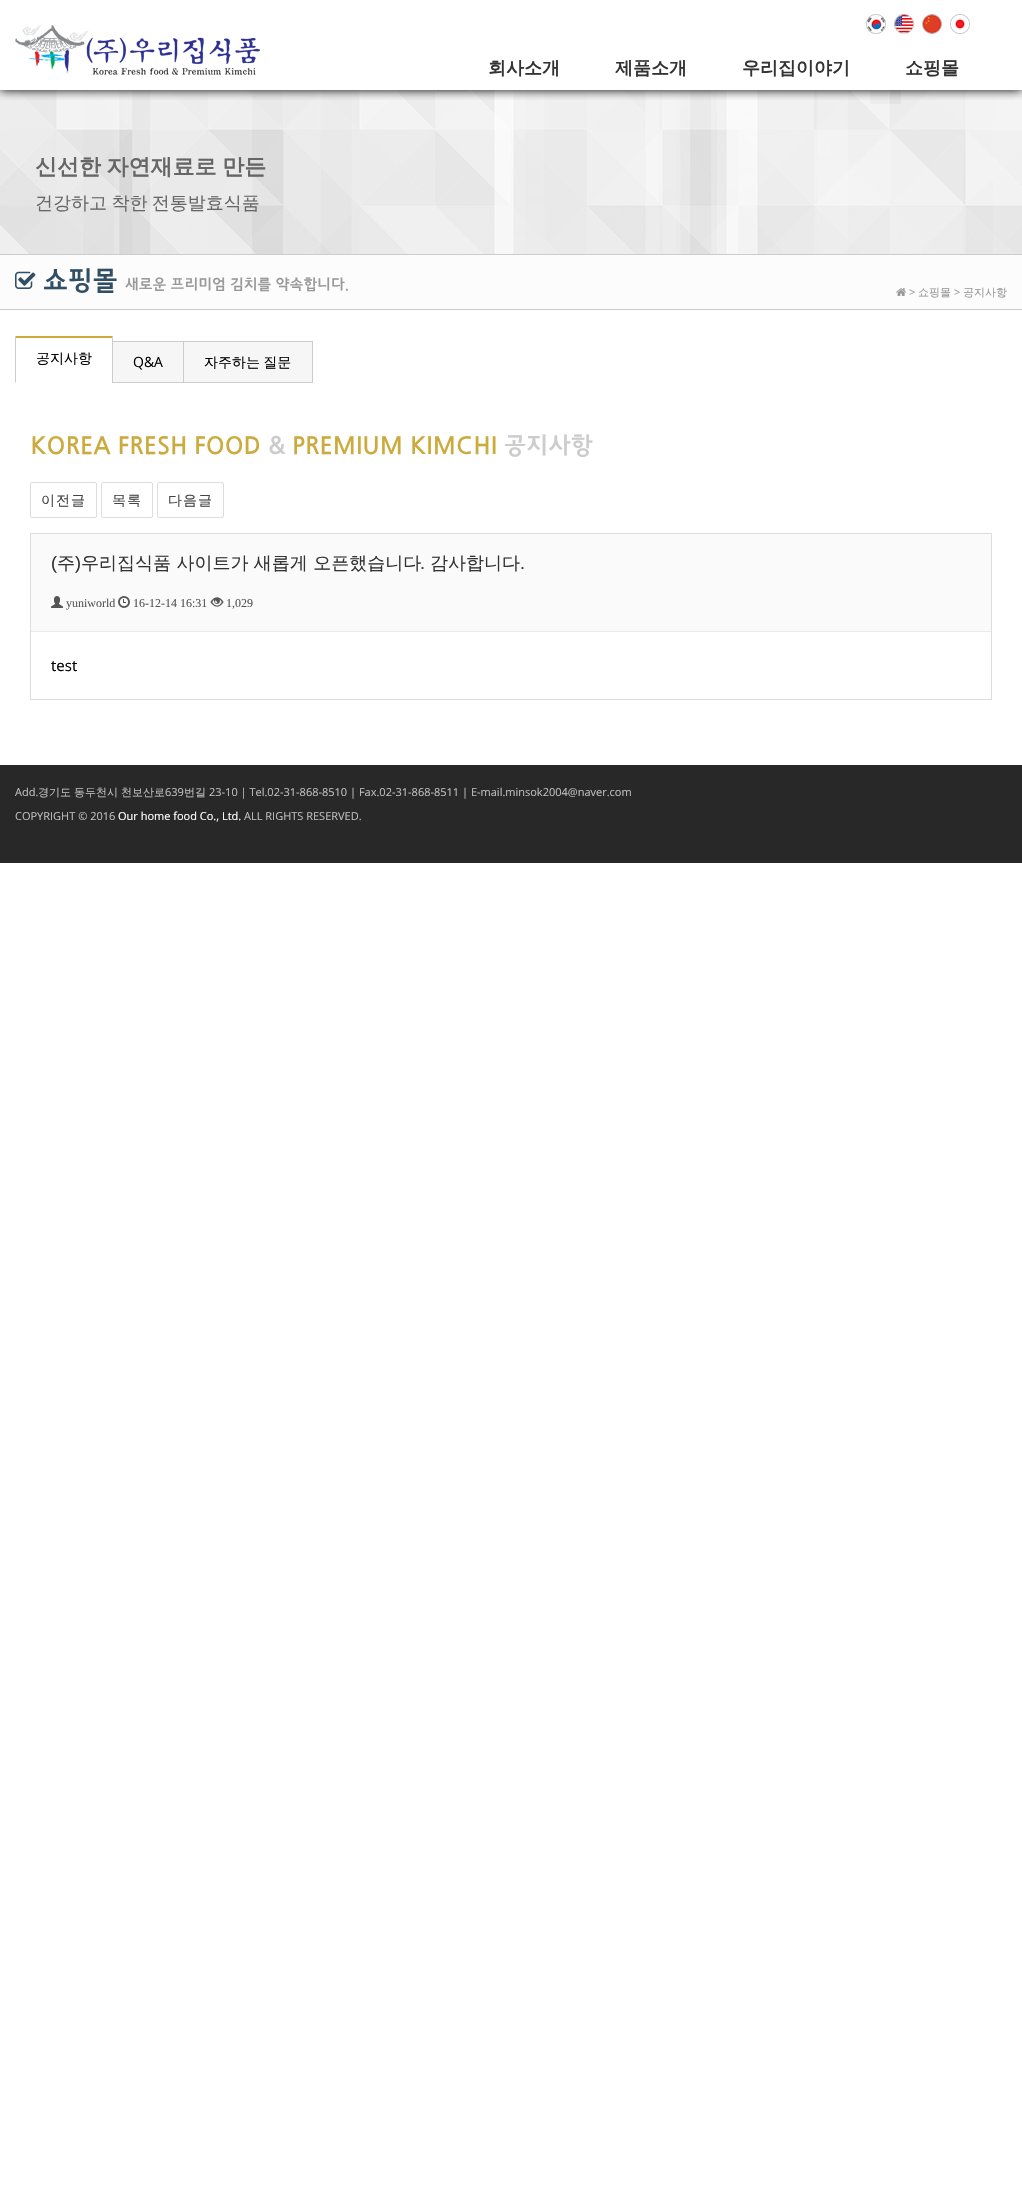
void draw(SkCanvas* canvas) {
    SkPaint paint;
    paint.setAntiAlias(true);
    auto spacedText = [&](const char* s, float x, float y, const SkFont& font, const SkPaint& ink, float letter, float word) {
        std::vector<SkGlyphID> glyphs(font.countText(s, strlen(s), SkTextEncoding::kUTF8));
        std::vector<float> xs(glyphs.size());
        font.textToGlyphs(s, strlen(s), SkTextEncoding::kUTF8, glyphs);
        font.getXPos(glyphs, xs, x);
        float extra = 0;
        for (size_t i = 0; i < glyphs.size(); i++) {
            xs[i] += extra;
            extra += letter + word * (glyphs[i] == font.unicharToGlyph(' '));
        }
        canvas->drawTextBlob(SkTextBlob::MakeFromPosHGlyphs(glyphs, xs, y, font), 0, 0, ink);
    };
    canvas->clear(0xFFFFFFFF);
    canvas->drawImageRect(SkImages::DeferredFromEncodedData(SkData::MakeFromFileName("img6.png")), SkRect::MakeXYWH(0, 90, 1022, 164), SkSamplingOptions());
    canvas->save();
    canvas->clipRect(SkRect::MakeXYWH(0, 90, 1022, 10));
    paint.setColor(0xFF000000);
    paint.setMaskFilter(SkMaskFilter::MakeBlur(kNormal_SkBlurStyle, 5));
    canvas->drawRect(SkRect::MakeXYWH(0, 0, 1022, 90), paint);
    paint.setMaskFilter(nullptr);
    canvas->restore();
    canvas->drawImageRect(SkImages::DeferredFromEncodedData(SkData::MakeFromFileName("img1.png")), SkRect::MakeXYWH(15, 25, 245, 50), SkSamplingOptions());
    canvas->drawImageRect(SkImages::DeferredFromEncodedData(SkData::MakeFromFileName("img2.png")), SkRect::MakeXYWH(866, 14, 20, 20), SkSamplingOptions());
    canvas->drawImageRect(SkImages::DeferredFromEncodedData(SkData::MakeFromFileName("img3.png")), SkRect::MakeXYWH(894, 14, 20, 20), SkSamplingOptions());
    canvas->drawImageRect(SkImages::DeferredFromEncodedData(SkData::MakeFromFileName("img4.png")), SkRect::MakeXYWH(922, 14, 20, 20), SkSamplingOptions());
    canvas->drawImageRect(SkImages::DeferredFromEncodedData(SkData::MakeFromFileName("img5.png")), SkRect::MakeXYWH(950, 14, 20, 20), SkSamplingOptions());
    SkFont font1(fontMgr->matchFamilyStyle("WenQuanYi Zen Hei", SkFontStyle::Bold()), 18);
    font1.setSubpixel(true);
    paint.setColor(0xFF333333);
    canvas->drawString("회사소개", 488, 74, font1, paint);
    canvas->drawString("제품소개", 615, 74, font1, paint);
    canvas->drawString("우리집이야기", 742, 74, font1, paint);
    canvas->drawString("쇼핑몰", 905, 74, font1, paint);
    SkFont font2(fontMgr->matchFamilyStyle("WenQuanYi Zen Hei", SkFontStyle::Bold()), 22);
    font2.setSubpixel(true);
    paint.setColor(0xFF666666);
    spacedText("신선한 자연재료로 만든", 35, 174, font2, paint, 0, -1);
    SkFont font3(fontMgr->matchFamilyStyle("WenQuanYi Zen Hei", SkFontStyle(500, SkFontStyle::kNormal_Width, SkFontStyle::kUpright_Slant)), 18);
    font3.setSubpixel(true);
    spacedText("건강하고 착한 전통발효식품", 35, 209, font3, paint, 0, -1);
    paint.setColor(0xFFFCFCFC);
    canvas->drawRect(SkRect::MakeXYWH(0, 255, 1022, 54), paint);
    paint.setColor(0xFFCCCCCC);
    canvas->drawRect(SkRect::MakeXYWH(0, 254, 1022, 1), paint);
    canvas->drawRect(SkRect::MakeXYWH(0, 309, 1022, 1), paint);
    canvas->drawImageRect(SkImages::DeferredFromEncodedData(SkData::MakeFromFileName("img7.png")), SkRect::MakeXYWH(15, 271, 21, 18), SkSamplingOptions());
    SkFont font4(fontMgr->matchFamilyStyle("JejuGothic", SkFontStyle::Normal()), 27);
    font4.setSubpixel(true);
    paint.setColor(0xFF314E64);
    canvas->drawString("쇼핑몰", 43, 289, font4, paint);
    SkFont font5(fontMgr->matchFamilyStyle("JejuGothic", SkFontStyle::Normal()), 15);
    font5.setSubpixel(true);
    paint.setColor(0xFF999999);
    canvas->drawString("새로운 프리미엄 김치를 약속합니다.", 125, 289, font5, paint);
    canvas->drawImageRect(SkImages::DeferredFromEncodedData(SkData::MakeFromFileName("img8.png")), SkRect::MakeXYWH(896, 288, 10, 8), SkSamplingOptions());
    SkFont font6(fontMgr->matchFamilyStyle("Open Sans", SkFontStyle::Normal()), 11);
    font6.setSubpixel(true);
    canvas->drawString(">", 909, 296, font6, paint);
    SkFont font7(fontMgr->matchFamilyStyle("WenQuanYi Zen Hei", SkFontStyle(500, SkFontStyle::kNormal_Width, SkFontStyle::kUpright_Slant)), 11);
    font7.setSubpixel(true);
    canvas->drawString("쇼핑몰", 918, 296, font7, paint);
    canvas->drawString(">", 954, 296, font6, paint);
    canvas->drawString("공지사항", 963, 296, font7, paint);
    paint.setColor(0xFFCBAB3D);
    canvas->drawPath(SkPathBuilder().moveTo(15, 336).lineTo(113, 336).lineTo(112, 338).lineTo(16, 338).close().detach(), paint);
    paint.setColor(0xFFCCCCCC);
    canvas->drawPath(SkPathBuilder().moveTo(113, 336).lineTo(113, 383).lineTo(112, 382).lineTo(112, 338).close().detach(), paint);
    paint.setColor(0xFFFFFFFF);
    canvas->drawRect(SkRect::MakeXYWH(112, 382, 1, 1), paint);
    paint.setColor(0xFFCCCCCC);
    canvas->drawPath(SkPathBuilder().moveTo(15, 383).lineTo(15, 336).lineTo(16, 338).lineTo(16, 382).close().detach(), paint);
    SkFont font8(fontMgr->matchFamilyStyle("WenQuanYi Zen Hei", SkFontStyle(500, SkFontStyle::kNormal_Width, SkFontStyle::kUpright_Slant)), 14);
    font8.setSubpixel(true);
    paint.setColor(0xFF000000);
    canvas->drawString("공지사항", 36, 363, font8, paint);
    paint.setColor(0xFFF6F6F6);
    canvas->drawRect(SkRect::MakeXYWH(112.5f, 341.5f, 71, 41), paint);
    paint.setStyle(SkPaint::kStroke_Style);
    paint.setStrokeWidth(1);
    paint.setColor(0xFFCCCCCC);
    canvas->drawRect(SkRect::MakeXYWH(112.5f, 341.5f, 71, 41), paint);
    SkFont font9(fontMgr->matchFamilyStyle("Open Sans", SkFontStyle::Normal()), 14);
    font9.setSubpixel(true);
    paint.setStyle(SkPaint::kFill_Style);
    paint.setColor(0xFF000000);
    canvas->drawString("Q&A", 133, 367, font9, paint);
    paint.setColor(0xFFF6F6F6);
    canvas->drawRect(SkRect::MakeXYWH(183.5f, 341.5f, 129, 41), paint);
    paint.setStyle(SkPaint::kStroke_Style);
    paint.setColor(0xFFCCCCCC);
    canvas->drawRect(SkRect::MakeXYWH(183.5f, 341.5f, 129, 41), paint);
    paint.setStyle(SkPaint::kFill_Style);
    paint.setColor(0xFF000000);
    spacedText("자주하는 질문", 204, 367, font8, paint, 0, -1);
    SkFont font10(fontMgr->matchFamilyStyle("JejuGothic", SkFontStyle::Normal()), 24);
    font10.setSubpixel(true);
    paint.setColor(0xFFCBAB3D);
    canvas->drawString("KOREA FRESH FOOD", 30, 453, font10, paint);
    paint.setColor(0xFFCCCCCC);
    canvas->drawString("&", 268, 453, font10, paint);
    paint.setColor(0xFFCBAB3D);
    canvas->drawString("PREMIUM KIMCHI", 292, 453, font10, paint);
    paint.setColor(0xFFCCCCCC);
    canvas->drawString("공지사항", 504, 453, font10, paint);
    paint.setStyle(SkPaint::kStroke_Style);
    paint.setColor(0xFFDDDDDD);
    canvas->drawRoundRect(SkRect::MakeXYWH(30.5f, 482.5f, 66, 35), 1.5f, 1.5f, paint);
    paint.setStyle(SkPaint::kFill_Style);
    paint.setColor(0xFF444444);
    spacedText("이전글", 41, 505, font8, paint, 1, 0);
    paint.setStyle(SkPaint::kStroke_Style);
    paint.setColor(0xFFDDDDDD);
    canvas->drawRoundRect(SkRect::MakeXYWH(101.5f, 482.5f, 51, 35), 1.5f, 1.5f, paint);
    paint.setStyle(SkPaint::kFill_Style);
    paint.setColor(0xFF444444);
    spacedText("목록", 112, 505, font8, paint, 1, 0);
    paint.setStyle(SkPaint::kStroke_Style);
    paint.setColor(0xFFDDDDDD);
    canvas->drawRoundRect(SkRect::MakeXYWH(157.5f, 482.5f, 66, 35), 1.5f, 1.5f, paint);
    paint.setStyle(SkPaint::kFill_Style);
    paint.setColor(0xFF444444);
    spacedText("다음글", 168, 505, font8, paint, 1, 0);
    paint.setColor(0xFFFAFAFA);
    canvas->drawRect(SkRect::MakeXYWH(31, 534, 960, 97), paint);
    paint.setColor(0xFFDDDDDD);
    canvas->drawRect(SkRect::MakeXYWH(30, 533, 962, 1), paint);
    canvas->drawRect(SkRect::MakeXYWH(991, 533, 1, 98), paint);
    canvas->drawRect(SkRect::MakeXYWH(30, 533, 1, 98), paint);
    SkFont font11(fontMgr->matchFamilyStyle("Liberation Sans", SkFontStyle::Normal()), 18);
    font11.setSubpixel(true);
    paint.setColor(0xFF333333);
    canvas->drawString("(", 51, 569, font11, paint);
    canvas->drawString("주", 57, 569, font3, paint);
    canvas->drawString(")", 75, 569, font11, paint);
    canvas->drawString("우리집식품 사이트가 새롭게 오픈했습니다", 81, 569, font3, paint);
    canvas->drawString(".", 420, 569, font11, paint);
    canvas->drawString("감사합니다", 430, 569, font3, paint);
    canvas->drawString(".", 520, 569, font11, paint);
    canvas->drawImageRect(SkImages::DeferredFromEncodedData(SkData::MakeFromFileName("img9.png")), SkRect::MakeXYWH(51, 596, 12, 12), SkSamplingOptions());
    SkFont font12(fontMgr->matchFamilyStyle("Liberation Serif", SkFontStyle::Normal()), 12);
    font12.setSubpixel(true);
    paint.setColor(0xFF555555);
    canvas->drawString("yuniworld", 66, 607, font12, paint);
    canvas->drawImageRect(SkImages::DeferredFromEncodedData(SkData::MakeFromFileName("img10.png")), SkRect::MakeXYWH(118, 596, 12, 12), SkSamplingOptions());
    canvas->drawString("16-12-14 16:31", 133, 607, font12, paint);
    canvas->drawImageRect(SkImages::DeferredFromEncodedData(SkData::MakeFromFileName("img11.png")), SkRect::MakeXYWH(210, 597, 14, 10), SkSamplingOptions());
    canvas->drawString("1,029", 226, 607, font12, paint);
    paint.setColor(0xFFEAEAEA);
    canvas->drawRect(SkRect::MakeXYWH(30, 631, 962, 1), paint);
    paint.setColor(0xFFDDDDDD);
    canvas->drawRect(SkRect::MakeXYWH(991, 631, 1, 69), paint);
    canvas->drawRect(SkRect::MakeXYWH(30, 699, 962, 1), paint);
    canvas->drawRect(SkRect::MakeXYWH(30, 631, 1, 69), paint);
    SkFont font13(fontMgr->matchFamilyStyle("Open Sans", SkFontStyle::Normal()), 15);
    font13.setSubpixel(true);
    paint.setColor(0xFF000000);
    canvas->drawString("test", 51, 671, font13, paint);
    paint.setColor(0xFF282828);
    canvas->drawRect(SkRect::MakeXYWH(0, 765, 1022, 98), paint);
    paint.setColor(0xFFBFBFBF);
    canvas->drawString("Add.", 15, 796, font6, paint);
    canvas->drawString("경기도", 38, 796, font7, paint);
    canvas->drawString("동두천시", 74, 796, font7, paint);
    canvas->drawString("천보산로", 121, 796, font7, paint);
    canvas->drawString("639", 165, 796, font6, paint);
    canvas->drawString("번길", 184, 796, font7, paint);
    canvas->drawString("23-10 | Tel.02-31-868-8510 | Fax.02-31-868-8511 | E-mail.minsok2004@naver.com", 209, 796, font6, paint);
    canvas->drawString("COPYRIGHT © 2016", 15, 820, font6, paint);
    paint.setColor(0xFFFFFFFF);
    canvas->drawString("Our home food Co., Ltd.", 118, 820, font6, paint);
    paint.setColor(0xFFBFBFBF);
    canvas->drawString("ALL RIGHTS RESERVED.", 244, 820, font6, paint);
}
